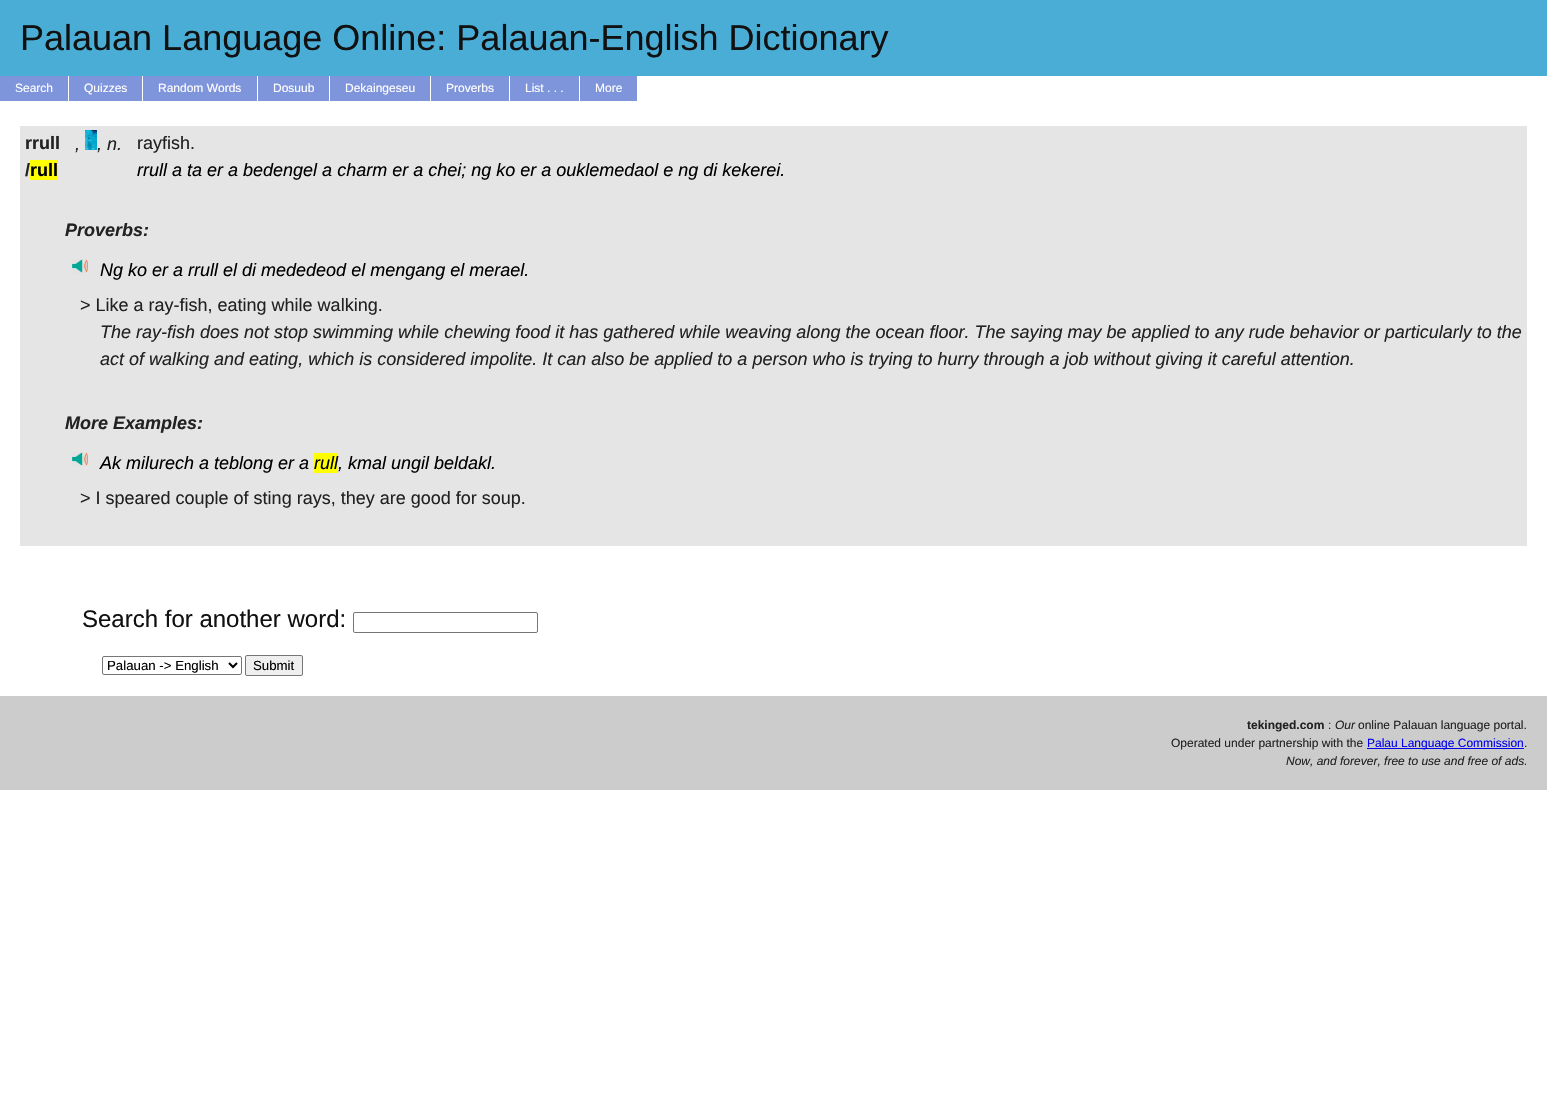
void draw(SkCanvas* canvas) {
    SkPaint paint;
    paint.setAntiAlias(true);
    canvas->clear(0xFFFFFFFF);
    paint.setColor(0xFF4AADD6);
    canvas->drawRect(SkRect::MakeXYWH(0, 0, 1547, 76), paint);
    SkFont font1(fontMgr->matchFamilyStyle("Liberation Sans", SkFontStyle::Normal()), 36);
    font1.setSubpixel(true);
    paint.setColor(0xFF111111);
    canvas->drawString("Palauan Language Online: Palauan-English Dictionary", 20, 50, font1, paint);
    paint.setColor(0xFF7F95DB);
    canvas->drawRect(SkRect::MakeXYWH(0, 76, 68, 25), paint);
    SkFont font2(fontMgr->matchFamilyStyle("Liberation Sans", SkFontStyle::Normal()), 12);
    font2.setSubpixel(true);
    paint.setColor(0xFFFFFFFF);
    canvas->drawString("Search", 15, 92, font2, paint);
    paint.setColor(0xFF7F95DB);
    canvas->drawRect(SkRect::MakeXYWH(69, 76, 73, 25), paint);
    paint.setColor(0xFFFFFFFF);
    canvas->drawString("Quizzes", 84, 92, font2, paint);
    paint.setColor(0xFF7F95DB);
    canvas->drawRect(SkRect::MakeXYWH(143, 76, 114, 25), paint);
    paint.setColor(0xFFFFFFFF);
    canvas->drawString("Random Words", 158, 92, font2, paint);
    paint.setColor(0xFF7F95DB);
    canvas->drawRect(SkRect::MakeXYWH(258, 76, 71, 25), paint);
    paint.setColor(0xFFFFFFFF);
    canvas->drawString("Dosuub", 273, 92, font2, paint);
    paint.setColor(0xFF7F95DB);
    canvas->drawRect(SkRect::MakeXYWH(330, 76, 100, 25), paint);
    paint.setColor(0xFFFFFFFF);
    canvas->drawString("Dekaingeseu", 345, 92, font2, paint);
    paint.setColor(0xFF7F95DB);
    canvas->drawRect(SkRect::MakeXYWH(431, 76, 78, 25), paint);
    paint.setColor(0xFFFFFFFF);
    canvas->drawString("Proverbs", 446, 92, font2, paint);
    paint.setColor(0xFF7F95DB);
    canvas->drawRect(SkRect::MakeXYWH(510, 76, 69, 25), paint);
    paint.setColor(0xFFFFFFFF);
    canvas->drawString("List . . .", 525, 92, font2, paint);
    paint.setColor(0xFF7F95DB);
    canvas->drawRect(SkRect::MakeXYWH(580, 76, 57, 25), paint);
    paint.setColor(0xFFFFFFFF);
    canvas->drawString("More", 595, 92, font2, paint);
    paint.setColor(0xFFE5E5E5);
    canvas->drawRect(SkRect::MakeXYWH(20, 126, 1507, 420), paint);
    SkFont font3(fontMgr->matchFamilyStyle("Liberation Sans", SkFontStyle::Bold()), 18);
    font3.setSubpixel(true);
    paint.setColor(0xFF222222);
    canvas->drawString("rrull", 25, 149, font3, paint);
    canvas->drawString("/", 25, 176, font3, paint);
    paint.setColor(0xFFFFFF00);
    canvas->drawRect(SkRect::MakeXYWH(30, 160, 28, 20), paint);
    paint.setColor(0xFF000000);
    canvas->drawString("rull", 30, 176, font3, paint);
    SkFont font4(fontMgr->matchFamilyStyle("Liberation Sans", SkFontStyle::Italic()), 18);
    font4.setSubpixel(true);
    paint.setColor(0xFF222222);
    canvas->drawString(",", 75, 150, font4, paint);
    canvas->drawImageRect(SkImages::DeferredFromEncodedData(SkData::MakeFromFileName("img1.png")), SkRect::MakeXYWH(85, 130, 12, 20), SkSamplingOptions());
    canvas->drawString(", n.", 97, 150, font4, paint);
    SkFont font5(fontMgr->matchFamilyStyle("Liberation Sans", SkFontStyle::Normal()), 18);
    font5.setSubpixel(true);
    canvas->drawString("rayfish.", 137, 149, font5, paint);
    paint.setColor(0xFF000000);
    canvas->drawString("rrull a ta er a bedengel a charm er a chei; ng ko er a ouklemedaol e ng di kekerei.", 137, 176, font4, paint);
    SkFont font6(fontMgr->matchFamilyStyle("Liberation Sans", SkFontStyle::BoldItalic()), 18);
    font6.setSubpixel(true);
    paint.setColor(0xFF222222);
    canvas->drawString("Proverbs:", 65, 236, font6, paint);
    canvas->drawImageRect(SkImages::DeferredFromEncodedData(SkData::MakeFromFileName("img2.png")), SkRect::MakeXYWH(72, 259, 16, 14), SkSamplingOptions());
    paint.setColor(0xFF000000);
    canvas->drawString("Ng ko er a rrull el di mededeod el mengang el merael.", 100, 276, font4, paint);
    paint.setColor(0xFF222222);
    canvas->drawString("> Like a ray-fish, eating while walking.", 80, 311, font5, paint);
    canvas->drawString("The ray-fish does not stop swimming while chewing food it has gathered while weaving along the ocean floor. The saying may be applied to any rude behavior or particularly to the", 100, 338, font4, paint);
    canvas->drawString("act of walking and eating, which is considered impolite. It can also be applied to a person who is trying to hurry through a job without giving it careful attention.", 100, 365, font4, paint);
    canvas->drawString("More Examples:", 65, 429, font6, paint);
    canvas->drawImageRect(SkImages::DeferredFromEncodedData(SkData::MakeFromFileName("img2.png")), SkRect::MakeXYWH(72, 452, 16, 14), SkSamplingOptions());
    paint.setColor(0xFF000000);
    canvas->drawString("Ak milurech a teblong er a", 100, 469, font4, paint);
    paint.setColor(0xFFFFFF00);
    canvas->drawRect(SkRect::MakeXYWH(314, 453, 24, 20), paint);
    paint.setColor(0xFF000000);
    canvas->drawString("rull, kmal ungil beldakl.", 314, 469, font4, paint);
    paint.setColor(0xFF222222);
    canvas->drawString("> I speared couple of sting rays, they are good for soup.", 80, 504, font5, paint);
    SkFont font7(fontMgr->matchFamilyStyle("Liberation Sans", SkFontStyle::Normal()), 24);
    font7.setSubpixel(true);
    paint.setColor(0xFF111111);
    canvas->drawString("Search for another word:", 82, 627, font7, paint);
    paint.setStyle(SkPaint::kStroke_Style);
    paint.setStrokeWidth(1);
    paint.setColor(0xFF767676);
    canvas->drawRoundRect(SkRect::MakeXYWH(353.5f, 612.5f, 184, 20), 1.5f, 1.5f, paint);
    canvas->drawRoundRect(SkRect::MakeXYWH(102.5f, 656.5f, 139, 18), 1.5f, 1.5f, paint);
    paint.setStrokeWidth(2);
    paint.setColor(0xFF000000);
    canvas->drawPath(SkPathBuilder().moveTo(229, 663).lineTo(233, 667).lineTo(237, 663).detach(), paint);
    SkFont font8(fontMgr->matchFamilyStyle("Liberation Sans", SkFontStyle::Normal()), 13.25f);
    font8.setSubpixel(true);
    paint.setStyle(SkPaint::kFill_Style);
    canvas->drawString("Palauan -> English", 107, 670, font8, paint);
    paint.setColor(0xFFEFEFEF);
    canvas->drawRoundRect(SkRect::MakeXYWH(245.5f, 655.5f, 57, 20), 1.5f, 1.5f, paint);
    paint.setStyle(SkPaint::kStroke_Style);
    paint.setStrokeWidth(1);
    paint.setColor(0xFF767676);
    canvas->drawRoundRect(SkRect::MakeXYWH(245.5f, 655.5f, 57, 20), 1.5f, 1.5f, paint);
    paint.setStyle(SkPaint::kFill_Style);
    paint.setColor(0xFF000000);
    canvas->drawString("Submit", 253, 670, font8, paint);
    paint.setColor(0xFFCCCCCC);
    canvas->drawRect(SkRect::MakeXYWH(0, 696, 1547, 94), paint);
    SkFont font9(fontMgr->matchFamilyStyle("Liberation Sans", SkFontStyle::Bold()), 12);
    font9.setSubpixel(true);
    paint.setColor(0xFF222222);
    canvas->drawString("tekinged.com", 1247, 729, font9, paint);
    canvas->drawString(":", 1328, 729, font2, paint);
    SkFont font10(fontMgr->matchFamilyStyle("Liberation Sans", SkFontStyle::Italic()), 12);
    font10.setSubpixel(true);
    canvas->drawString("Our", 1335, 729, font10, paint);
    canvas->drawString("online Palauan language portal.", 1358, 729, font2, paint);
    canvas->drawString("Operated under partnership with the", 1171, 747, font2, paint);
    paint.setColor(0xFF0000EE);
    canvas->drawRect(SkRect::MakeXYWH(1367, 748, 157, 1), paint);
    canvas->drawString("Palau Language Commission", 1367, 747, font2, paint);
    paint.setColor(0xFF222222);
    canvas->drawString(".", 1524, 747, font2, paint);
    canvas->drawString("Now, and forever, free to use and free of ads.", 1286, 765, font10, paint);
}
